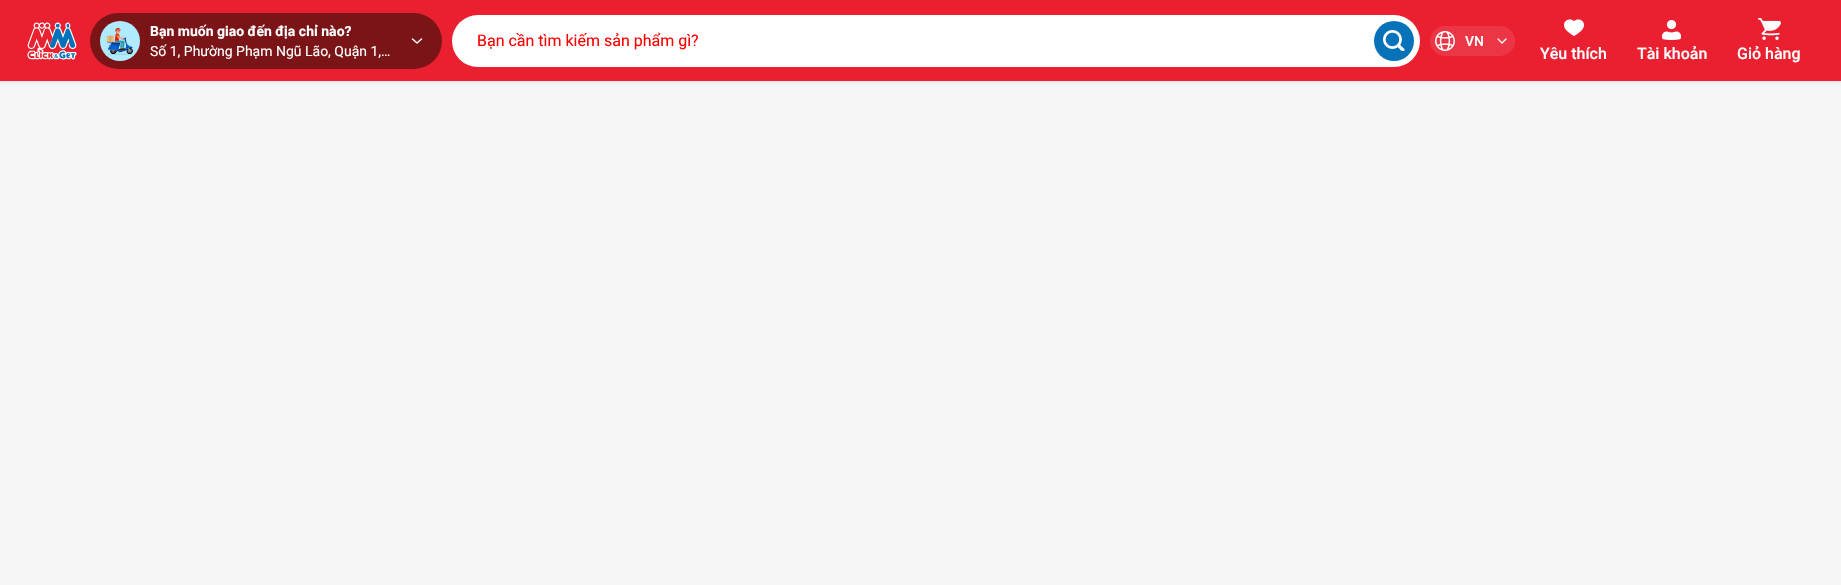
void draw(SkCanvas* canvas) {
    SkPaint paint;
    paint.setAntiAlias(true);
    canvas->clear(0xFFF5F5F5);
    paint.setColor(0x0D000000);
    paint.setMaskFilter(SkMaskFilter::MakeBlur(kNormal_SkBlurStyle, 1));
    canvas->drawRect(SkRect::MakeXYWH(0, 2, 1841, 81), paint);
    paint.setMaskFilter(nullptr);
    paint.setColor(0xFFEA2030);
    canvas->drawRect(SkRect::MakeXYWH(0, 0, 1841, 81), paint);
    canvas->drawImageRect(SkImages::DeferredFromEncodedData(SkData::MakeFromFileName("img1.png")), SkRect::MakeXYWH(27, 22, 50, 38), SkSamplingOptions());
    paint.setColor(0xFF7A1417);
    canvas->drawRoundRect(SkRect::MakeXYWH(90, 13, 352, 56), 28, 28, paint);
    canvas->drawImageRect(SkImages::DeferredFromEncodedData(SkData::MakeFromFileName("img2.png")), SkRect::MakeXYWH(100, 21, 40, 40), SkSamplingOptions());
    SkFont font1(fontMgr->matchFamilyStyle("Roboto", SkFontStyle::Bold()), 14);
    font1.setSubpixel(true);
    paint.setColor(0xFFFFFFFF);
    canvas->drawString("Bạn muốn giao đến địa chỉ nào?", 150, 36, font1, paint);
    SkFont font2(fontMgr->matchFamilyStyle("Roboto", SkFontStyle::Normal()), 14);
    font2.setSubpixel(true);
    canvas->drawString("Số 1, Phường Phạm Ngũ Lão, Quận 1,…", 150, 56, font2, paint);
    paint.setStyle(SkPaint::kStroke_Style);
    paint.setStrokeWidth(1.5f);
    paint.setStrokeCap(SkPaint::kRound_Cap);
    paint.setStrokeJoin(SkPaint::kRound_Join);
    canvas->drawPath(SkPathBuilder().moveTo(412.5f, 39).lineTo(417, 43).lineTo(421.5f, 39).detach(), paint);
    paint.setStyle(SkPaint::kFill_Style);
    canvas->drawRoundRect(SkRect::MakeXYWH(452, 15, 968, 52), 26, 26, paint);
    SkFont font3(fontMgr->matchFamilyStyle("Roboto", SkFontStyle::Normal()), 16);
    font3.setSubpixel(true);
    paint.setColor(0xFFFF0000);
    canvas->drawString("Bạn cần tìm kiếm sản phẩm gì?", 477, 46, font3, paint);
    paint.setColor(0xFF0672BA);
    canvas->drawCircle(1394, 41, 20, paint);
    canvas->drawImageRect(SkImages::DeferredFromEncodedData(SkData::MakeFromFileName("img3.png")), SkRect::MakeXYWH(1383, 30, 22, 21), SkSamplingOptions());
    paint.setColor(0xFFEC3645);
    canvas->drawRoundRect(SkRect::MakeXYWH(1430, 26, 85, 30), 15, 15, paint);
    canvas->drawImageRect(SkImages::DeferredFromEncodedData(SkData::MakeFromFileName("img4.png")), SkRect::MakeXYWH(1435, 31, 20, 20), SkSamplingOptions());
    SkFont font4(fontMgr->matchFamilyStyle("Roboto", SkFontStyle(500, SkFontStyle::kNormal_Width, SkFontStyle::kUpright_Slant)), 14);
    font4.setSubpixel(true);
    paint.setColor(0xFFFFFFFF);
    canvas->drawString("VN", 1465, 46, font4, paint);
    paint.setStyle(SkPaint::kStroke_Style);
    paint.setStrokeWidth(1.3f);
    canvas->drawPath(SkPathBuilder().moveTo(1498, 39).lineTo(1502, 43).lineTo(1506, 39).detach(), paint);
    canvas->drawImageRect(SkImages::DeferredFromEncodedData(SkData::MakeFromFileName("img5.png")), SkRect::MakeXYWH(1564, 19, 20, 17), SkSamplingOptions());
    SkFont font5(fontMgr->matchFamilyStyle("Roboto", SkFontStyle(500, SkFontStyle::kNormal_Width, SkFontStyle::kUpright_Slant)), 16);
    font5.setSubpixel(true);
    paint.setStyle(SkPaint::kFill_Style);
    canvas->drawString("Yêu thích", 1540, 59, font5, paint);
    canvas->drawImageRect(SkImages::DeferredFromEncodedData(SkData::MakeFromFileName("img6.png")), SkRect::MakeXYWH(1662, 20, 19, 20), SkSamplingOptions());
    canvas->drawString("Tài khoản", 1637, 59, font5, paint);
    canvas->drawImageRect(SkImages::DeferredFromEncodedData(SkData::MakeFromFileName("img7.png")), SkRect::MakeXYWH(1758, 18, 23, 22), SkSamplingOptions());
    canvas->drawString("Giỏ hàng", 1737, 59, font5, paint);
}
